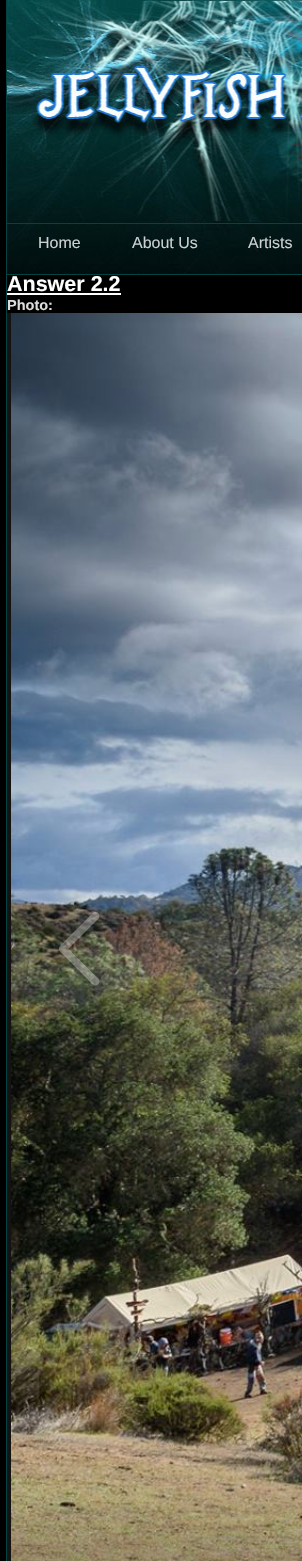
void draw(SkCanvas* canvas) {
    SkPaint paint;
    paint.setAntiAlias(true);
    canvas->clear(0xFF000000);
    paint.setColor(0xFF054342);
    canvas->drawRect(SkRect::MakeXYWH(6, 0, 1, 271), paint);
    canvas->drawImageRect(SkImages::DeferredFromEncodedData(SkData::MakeFromFileName("img1.png")), SkRect::MakeXYWH(7, 0, 295, 223), SkSamplingOptions());
    canvas->drawRect(SkRect::MakeXYWH(7, 223, 295, 1), paint);
    canvas->drawRect(SkRect::MakeXYWH(7, 274, 295, 1), paint);
    canvas->drawImageRect(SkImages::DeferredFromEncodedData(SkData::MakeFromFileName("img2.png")), SkRect::MakeXYWH(7, 224, 295, 50), SkSamplingOptions());
    SkFont font1(fontMgr->matchFamilyStyle("Liberation Sans", SkFontStyle::Normal()), 16);
    font1.setSubpixel(true);
    paint.setColor(0xFFCCD0D0);
    canvas->drawString("Home", 38, 248, font1, paint);
    canvas->drawString("About Us", 132, 248, font1, paint);
    canvas->drawString("Artists", 248, 248, font1, paint);
    paint.setColor(0xFF054342);
    canvas->drawPath(SkPathBuilder(SkPathFillType::kEvenOdd).moveTo(6, 271).lineTo(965, 271).lineTo(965, 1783).cubicTo(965, 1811, 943, 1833, 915, 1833).lineTo(56, 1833).cubicTo(28, 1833, 6, 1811, 6, 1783).close().moveTo(7, 271).lineTo(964, 271).lineTo(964, 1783).cubicTo(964, 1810, 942, 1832, 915, 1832).lineTo(56, 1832).cubicTo(29, 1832, 7, 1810, 7, 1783).close().detach(), paint);
    SkFont font2(fontMgr->matchFamilyStyle("Liberation Sans", SkFontStyle::Bold()), 21.5f);
    font2.setSubpixel(true);
    paint.setColor(0xFFFFFFFF);
    canvas->drawString("Answer 2.2", 7, 291, font2, paint);
    canvas->drawRect(SkRect::MakeXYWH(7, 293, 114, 2), paint);
    SkFont font3(fontMgr->matchFamilyStyle("Liberation Sans", SkFontStyle::Bold()), 14.5f);
    font3.setSubpixel(true);
    paint.setColor(0xFFDDDDDD);
    canvas->drawString("Photo:", 7, 310, font3, paint);
    canvas->drawImageRect(SkImages::DeferredFromEncodedData(SkData::MakeFromFileName("img3.png")), SkRect::MakeXYWH(7, 313, 295, 1248), SkSamplingOptions());
}
